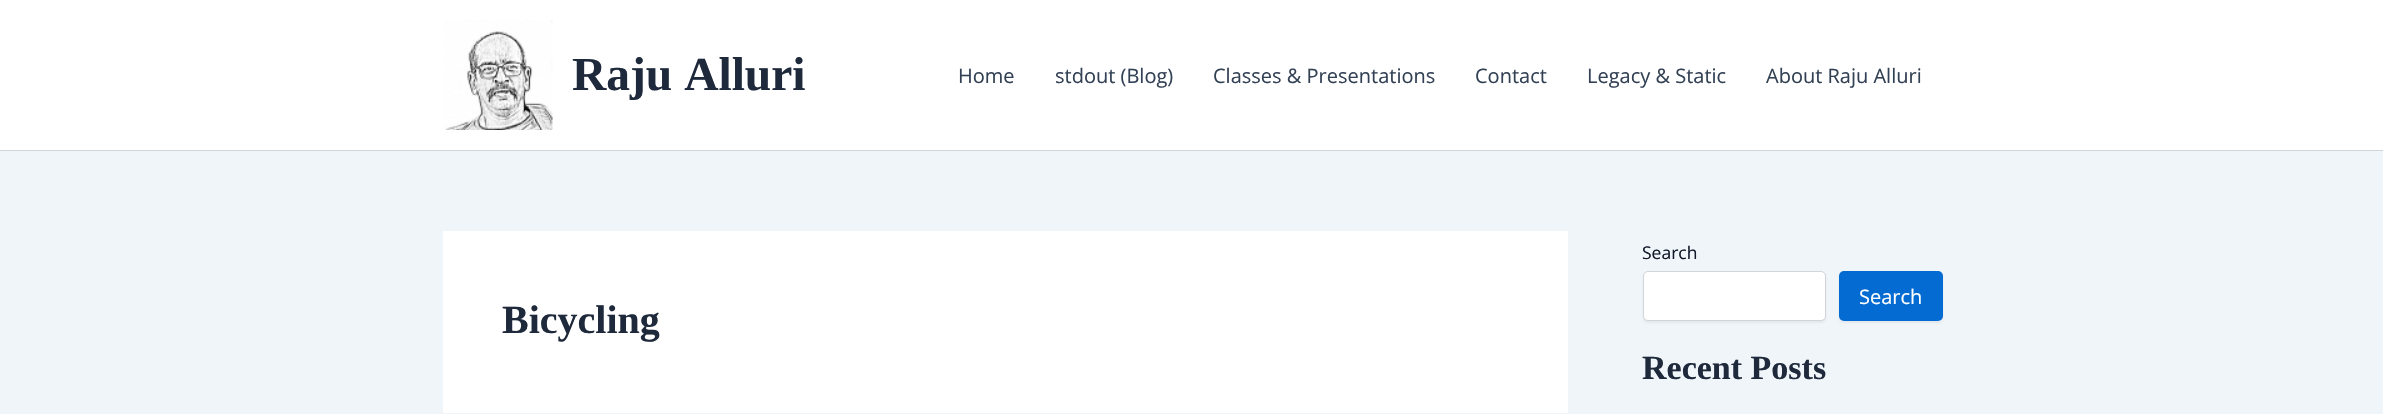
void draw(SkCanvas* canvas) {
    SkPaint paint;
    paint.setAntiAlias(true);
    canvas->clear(0xFFF0F5FA);
    paint.setColor(0xFFFFFFFF);
    canvas->drawRect(SkRect::MakeXYWH(0, 0, 2383, 150), paint);
    paint.setColor(0xFFD1D5DB);
    canvas->drawRect(SkRect::MakeXYWH(0, 150, 2383, 1), paint);
    canvas->drawImageRect(SkImages::DeferredFromEncodedData(SkData::MakeFromFileName("img1.png")), SkRect::MakeXYWH(444, 20, 109, 110), SkSamplingOptions());
    SkFont font1(fontMgr->matchFamilyStyle("Liberation Serif", SkFontStyle::Bold()), 47.5f);
    font1.setSubpixel(true);
    paint.setColor(0xFF1E293B);
    canvas->drawString("Raju Alluri", 572, 90, font1, paint);
    SkFont font2(fontMgr->matchFamilyStyle("Open Sans", SkFontStyle::Normal()), 20);
    font2.setSubpixel(true);
    paint.setColor(0xFF334155);
    canvas->drawString("Home", 958, 83, font2, paint);
    canvas->drawString("stdout (Blog)", 1055, 83, font2, paint);
    canvas->drawString("Classes & Presentations", 1213, 83, font2, paint);
    canvas->drawString("Contact", 1475, 83, font2, paint);
    canvas->drawString("Legacy & Static", 1587, 83, font2, paint);
    canvas->drawString("About Raju Alluri", 1766, 83, font2, paint);
    paint.setColor(0xFFFFFFFF);
    canvas->drawRect(SkRect::MakeXYWH(443, 231, 1125, 182), paint);
    SkFont font3(fontMgr->matchFamilyStyle("Liberation Serif", SkFontStyle::Bold()), 40);
    font3.setSubpixel(true);
    paint.setColor(0xFF1E293B);
    canvas->drawString("Bicycling", 502, 333, font3, paint);
    SkFont font4(fontMgr->matchFamilyStyle("Open Sans", SkFontStyle::Normal()), 17.5f);
    font4.setSubpixel(true);
    paint.setColor(0xFF111827);
    canvas->drawString("Search", 1642, 259, font4, paint);
    paint.setColor(0x0D000000);
    paint.setMaskFilter(SkMaskFilter::MakeBlur(kNormal_SkBlurStyle, 1));
    canvas->drawRoundRect(SkRect::MakeXYWH(1643, 273, 183, 50), 5, 5, paint);
    paint.setMaskFilter(nullptr);
    paint.setColor(0xFFFFFFFF);
    canvas->drawRoundRect(SkRect::MakeXYWH(1643.5f, 271.5f, 182, 49), 4.5f, 4.5f, paint);
    paint.setStyle(SkPaint::kStroke_Style);
    paint.setStrokeWidth(1);
    paint.setColor(0xFFD1D5DB);
    canvas->drawRoundRect(SkRect::MakeXYWH(1643.5f, 271.5f, 182, 49), 4.5f, 4.5f, paint);
    paint.setStyle(SkPaint::kFill_Style);
    paint.setColor(0x0D000000);
    paint.setMaskFilter(SkMaskFilter::MakeBlur(kNormal_SkBlurStyle, 1));
    canvas->drawRoundRect(SkRect::MakeXYWH(1839, 273, 104, 50), 5, 5, paint);
    paint.setMaskFilter(nullptr);
    paint.setColor(0xFF046BD2);
    canvas->drawRoundRect(SkRect::MakeXYWH(1839, 271, 104, 50), 5, 5, paint);
    paint.setColor(0xFFFFFFFF);
    canvas->drawString("Search", 1859, 304, font2, paint);
    SkFont font5(fontMgr->matchFamilyStyle("Liberation Serif", SkFontStyle::Bold()), 34);
    font5.setSubpixel(true);
    paint.setColor(0xFF1E293B);
    canvas->drawString("Recent Posts", 1642, 379, font5, paint);
}
